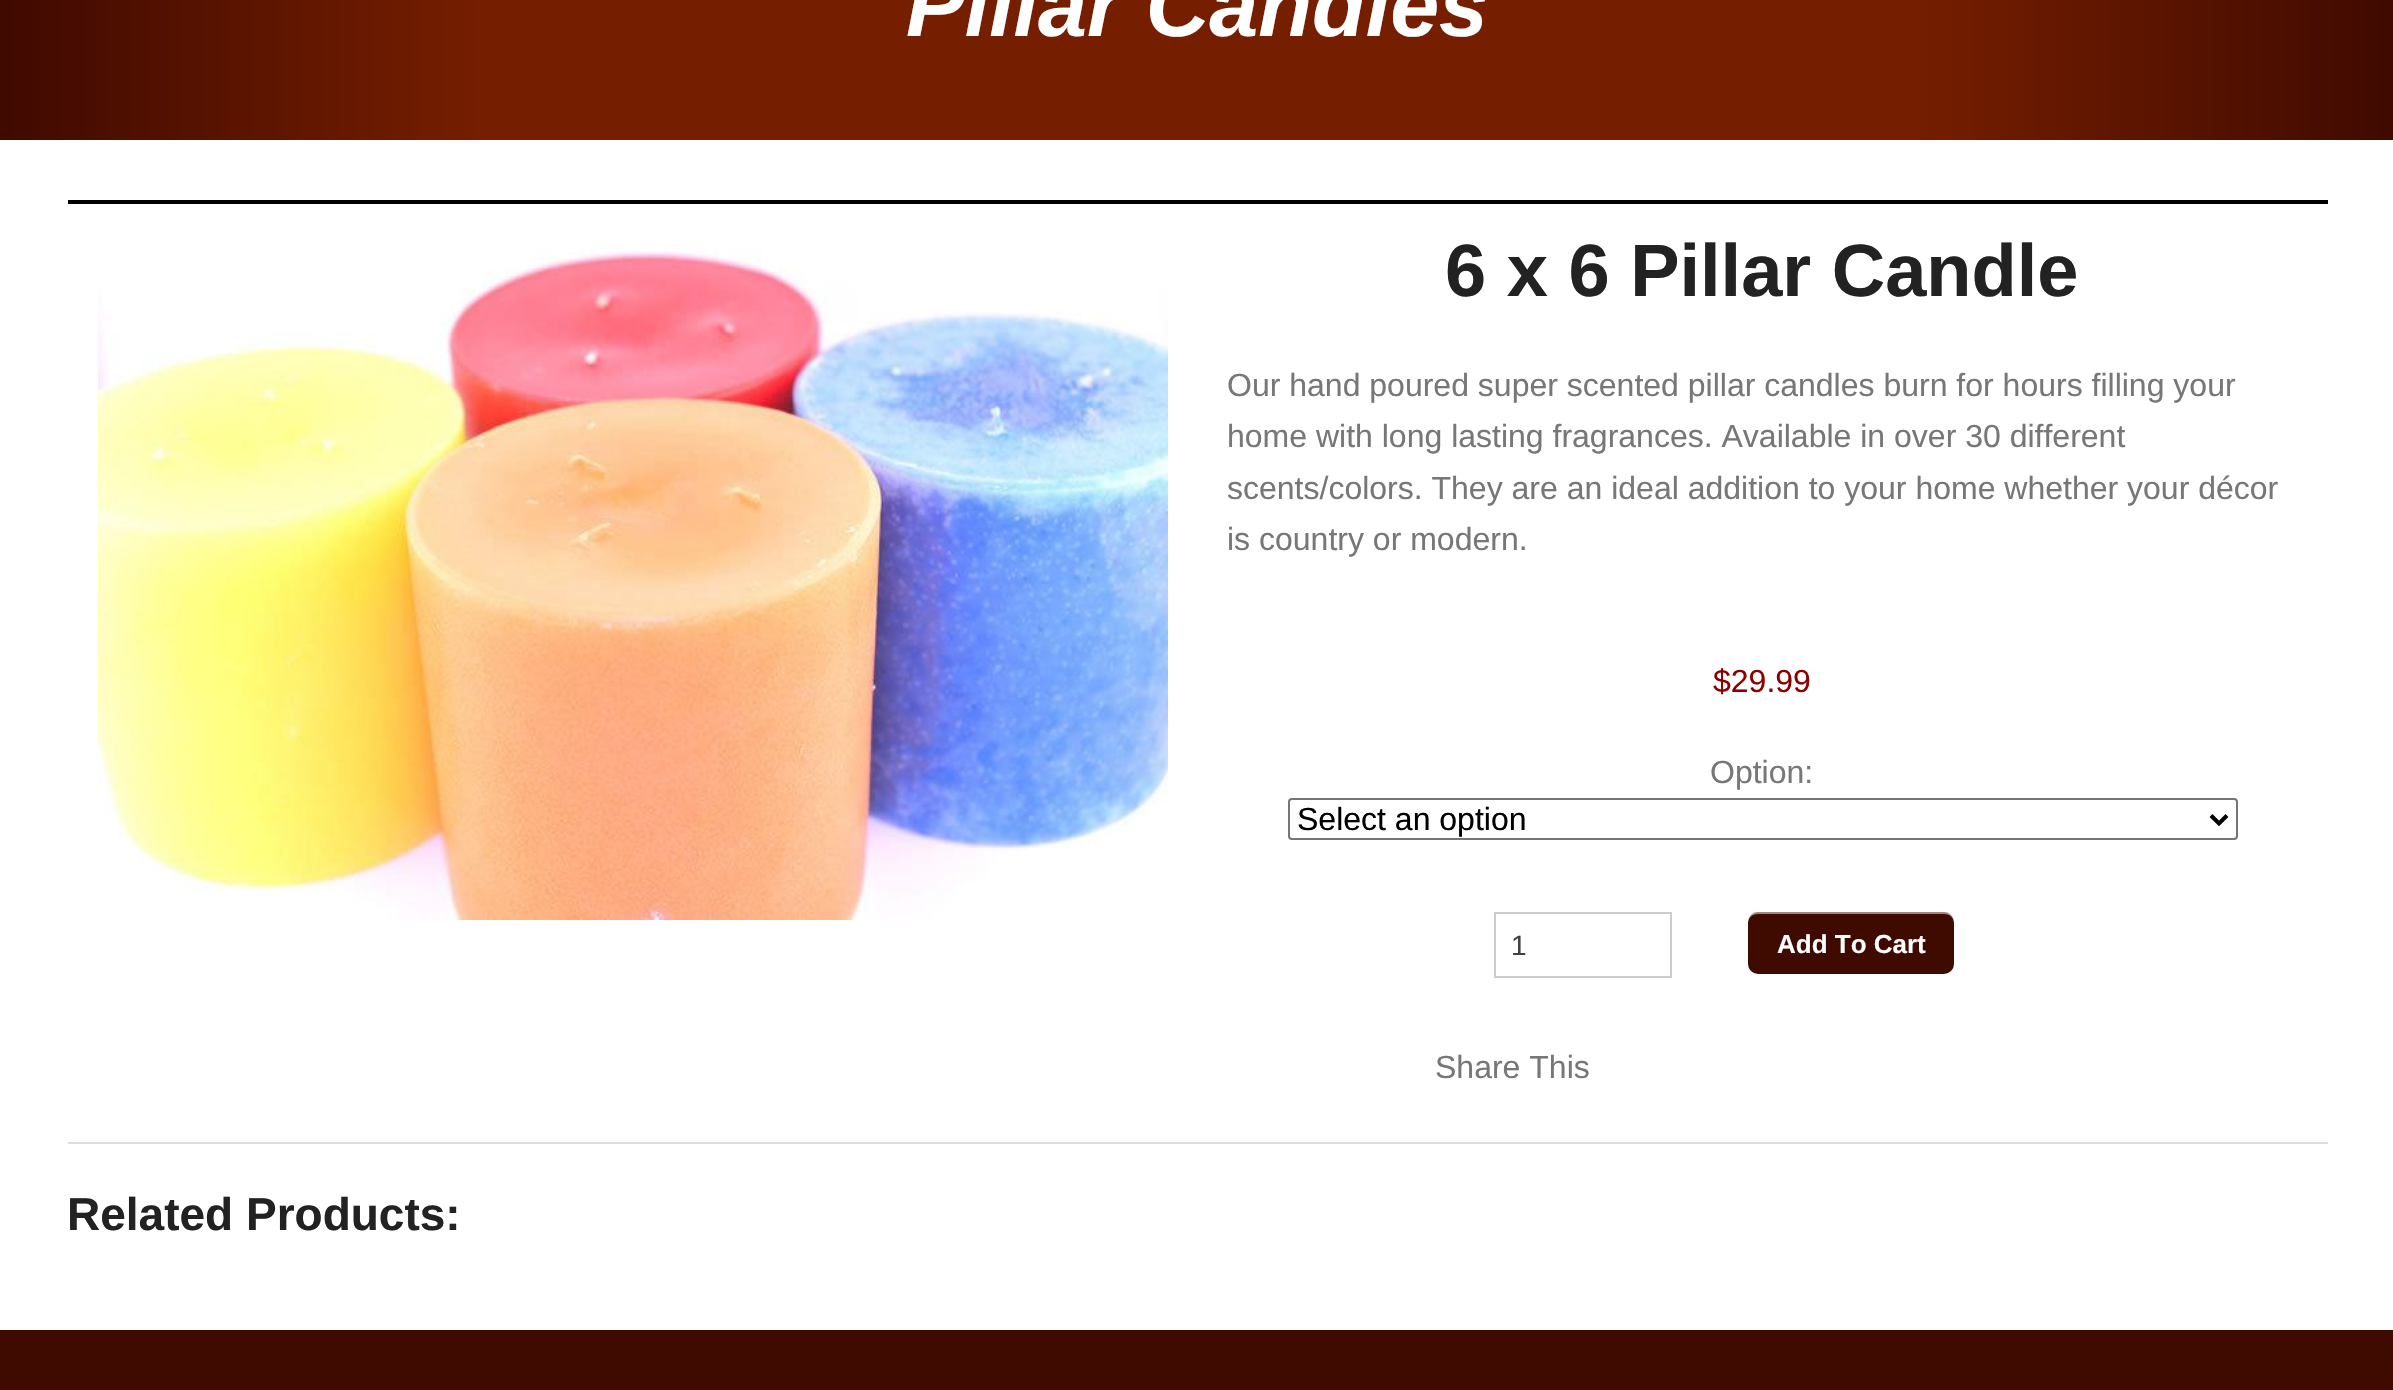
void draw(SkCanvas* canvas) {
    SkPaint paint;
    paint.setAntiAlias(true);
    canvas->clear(0xFFFFFFFF);
    {
        const SkColor colors[] = {0xFF400A00, 0xFF751E00, 0xFF751E00, 0xFF400A00};
        const float stops[] = {0, 0.2f, 0.8f, 1};
        const SkPoint ends[] = {{0, 18}, {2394, 18}};
        paint.setShader(SkGradientShader::MakeLinear(ends, colors, stops, 4, SkTileMode::kClamp));
        paint.setAlpha(255);
    }
    canvas->drawRect(SkRect::MakeXYWH(0, 0, 2393, 140), paint);
    SkFont font1(fontMgr->matchFamilyStyle("Liberation Sans", SkFontStyle::BoldItalic()), 88);
    font1.setSubpixel(true);
    paint.setShader(nullptr);
    paint.setColor(0xFFFFFFFF);
    canvas->drawString("Pillar Candles", 906, 36, font1, paint);
    paint.setColor(0xFF000000);
    canvas->drawRect(SkRect::MakeXYWH(68, 200, 2260, 4), paint);
    canvas->drawImageRect(SkImages::DeferredFromEncodedData(SkData::MakeFromFileName("img1.png")), SkRect::MakeXYWH(98, 247, 1070, 673), SkSamplingOptions());
    SkFont font2(fontMgr->matchFamilyStyle("Liberation Sans", SkFontStyle::Bold()), 74);
    font2.setSubpixel(true);
    paint.setColor(0xFF222222);
    canvas->drawString("6 x 6 Pillar Candle", 1445, 296, font2, paint);
    SkFont font3(fontMgr->matchFamilyStyle("Liberation Sans", SkFontStyle::Normal()), 32);
    font3.setSubpixel(true);
    paint.setColor(0xFF777777);
    canvas->drawString("Our hand poured super scented pillar candles burn for hours filling your", 1227, 396, font3, paint);
    canvas->drawString("home with long lasting fragrances. Available in over 30 different", 1227, 447, font3, paint);
    canvas->drawString("scents/colors. They are an ideal addition to your home whether your décor", 1227, 499, font3, paint);
    canvas->drawString("is country or modern.", 1227, 550, font3, paint);
    paint.setColor(0xFF8C0000);
    canvas->drawString("$29.99", 1713, 692, font3, paint);
    paint.setColor(0xFF777777);
    canvas->drawString("Option:", 1710, 783, font3, paint);
    paint.setStyle(SkPaint::kStroke_Style);
    paint.setStrokeWidth(2);
    paint.setColor(0xFF767676);
    canvas->drawRoundRect(SkRect::MakeXYWH(1289, 799, 948, 40), 3, 3, paint);
    paint.setStrokeWidth(4);
    paint.setColor(0xFF000000);
    canvas->drawPath(SkPathBuilder().moveTo(2211, 815.5f).lineTo(2219, 823.5f).lineTo(2227, 815.5f).detach(), paint);
    paint.setStyle(SkPaint::kFill_Style);
    canvas->drawString("Select an option", 1297, 830, font3, paint);
    paint.setStyle(SkPaint::kStroke_Style);
    paint.setStrokeWidth(2);
    paint.setColor(0xFFCCCCCC);
    canvas->drawRect(SkRect::MakeXYWH(1495, 913, 176, 64), paint);
    SkFont font4(fontMgr->matchFamilyStyle("Liberation Sans", SkFontStyle::Normal()), 28);
    font4.setSubpixel(true);
    paint.setStyle(SkPaint::kFill_Style);
    paint.setColor(0xFF404040);
    canvas->drawString("1", 1511, 955, font4, paint);
    paint.setColor(0xFF3F0A00);
    canvas->drawRoundRect(SkRect::MakeXYWH(1748, 912, 206, 62), 10, 10, paint);
    paint.setColor(0x80FFFFFF);
    canvas->drawPath(SkPathBuilder().moveTo(1758, 914).lineTo(1944, 914).cubicTo(1950, 914, 1954, 918, 1954, 924).lineTo(1954, 922).cubicTo(1954, 916, 1950, 912, 1944, 912).lineTo(1758, 912).cubicTo(1752, 912, 1748, 916, 1748, 922).lineTo(1748, 924).cubicTo(1748, 918, 1752, 914, 1758, 914).close().detach(), paint);
    SkFont font5(fontMgr->matchFamilyStyle("Liberation Sans", SkFontStyle::Bold()), 26);
    font5.setSubpixel(true);
    paint.setColor(0xFFFFFFFF);
    canvas->drawString("Add To Cart", 1777, 953, font5, paint);
    paint.setColor(0xFF777777);
    canvas->drawString("Share This", 1435, 1078, font3, paint);
    paint.setColor(0xFFDDDDDD);
    canvas->drawRect(SkRect::MakeXYWH(68, 1142, 2260, 2), paint);
    SkFont font6(fontMgr->matchFamilyStyle("Liberation Sans", SkFontStyle::Bold()), 46);
    font6.setSubpixel(true);
    paint.setColor(0xFF222222);
    canvas->drawString("Related Products:", 67, 1230, font6, paint);
    paint.setColor(0xFF3F0A00);
    canvas->drawRect(SkRect::MakeXYWH(0, 1330, 2393, 60), paint);
}
